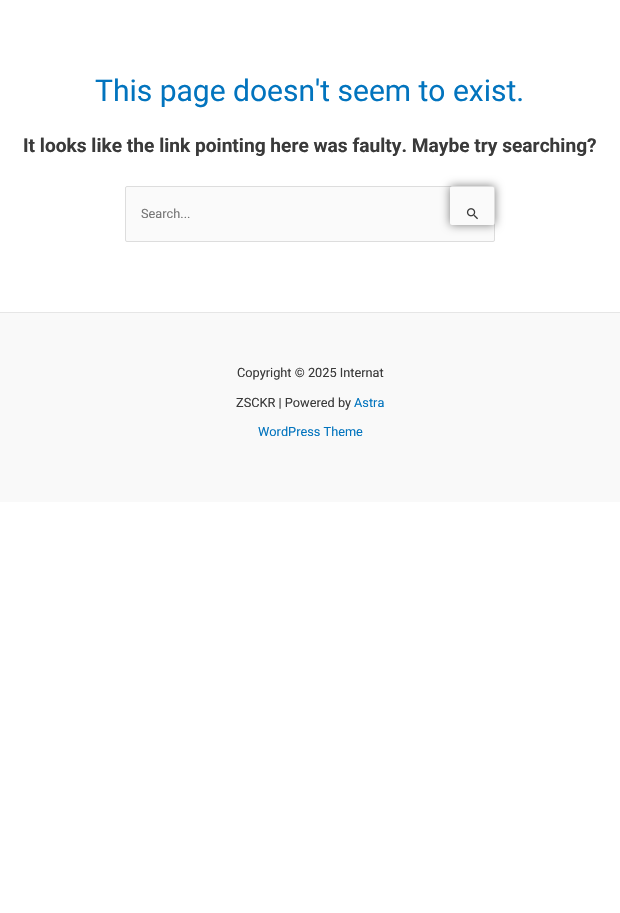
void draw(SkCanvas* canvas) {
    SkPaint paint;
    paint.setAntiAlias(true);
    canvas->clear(0xFFFFFFFF);
    SkFont font1(fontMgr->matchFamilyStyle("Roboto", SkFontStyle::Normal()), 30);
    font1.setSubpixel(true);
    paint.setColor(0xFF0274BE);
    canvas->drawString("This page doesn't seem to exist.", 95, 101, font1, paint);
    SkFont font2(fontMgr->matchFamilyStyle("Roboto", SkFontStyle::Bold()), 19.15f);
    font2.setSubpixel(true);
    paint.setColor(0xFF3A3A3A);
    canvas->drawString("It looks like the link pointing here was faulty. Maybe try searching?", 23, 152, font2, paint);
    paint.setColor(0xFFFAFAFA);
    canvas->drawRoundRect(SkRect::MakeXYWH(125.5f, 186.5f, 369, 55), 1.5f, 1.5f, paint);
    paint.setStyle(SkPaint::kStroke_Style);
    paint.setStrokeWidth(1);
    paint.setColor(0xFFDDDDDD);
    canvas->drawRoundRect(SkRect::MakeXYWH(125.5f, 186.5f, 369, 55), 1.5f, 1.5f, paint);
    SkFont font3(fontMgr->matchFamilyStyle("Roboto", SkFontStyle::Normal()), 12.75f);
    font3.setSubpixel(true);
    paint.setStyle(SkPaint::kFill_Style);
    paint.setColor(0xFF757575);
    canvas->drawString("Search...", 141, 218, font3, paint);
    canvas->drawImageRect(SkImages::DeferredFromEncodedData(SkData::MakeFromFileName("img1.png")), SkRect::MakeXYWH(466, 208, 12, 12), SkSamplingOptions());
    canvas->save();
    canvas->clipPath(SkPathBuilder(SkPathFillType::kEvenOdd).moveTo(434, 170).lineTo(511, 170).lineTo(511, 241).lineTo(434, 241).close().moveTo(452, 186).lineTo(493, 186).cubicTo(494, 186, 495, 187, 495, 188).lineTo(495, 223).cubicTo(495, 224, 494, 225, 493, 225).lineTo(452, 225).cubicTo(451, 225, 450, 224, 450, 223).lineTo(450, 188).cubicTo(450, 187, 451, 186, 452, 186).close().detach(), true);
    paint.setColor(0x80000000);
    paint.setMaskFilter(SkMaskFilter::MakeBlur(kNormal_SkBlurStyle, 5));
    canvas->drawRoundRect(SkRect::MakeXYWH(450, 186, 45, 39), 2, 2, paint);
    paint.setMaskFilter(nullptr);
    canvas->restore();
    paint.setColor(0xFFF9F9F9);
    canvas->drawRect(SkRect::MakeXYWH(0, 313, 620, 189), paint);
    paint.setColor(0xFFE6E6E6);
    canvas->drawRect(SkRect::MakeXYWH(0, 312, 620, 1), paint);
    paint.setColor(0xFF3A3A3A);
    canvas->drawString("Copyright © 2025 Internat", 237, 377, font3, paint);
    canvas->drawString("ZSCKR | Powered by", 236, 407, font3, paint);
    paint.setColor(0xFF0274BE);
    canvas->drawString("Astra", 354, 407, font3, paint);
    canvas->drawString("WordPress Theme", 258, 436, font3, paint);
}
